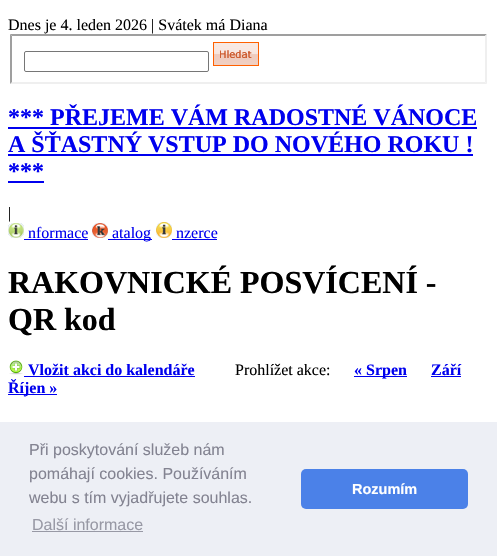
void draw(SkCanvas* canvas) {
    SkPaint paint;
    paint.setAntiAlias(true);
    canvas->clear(0xFFFFFFFF);
    SkFont font1(fontMgr->matchFamilyStyle("Liberation Serif", SkFontStyle::Normal()), 16);
    font1.setSubpixel(true);
    paint.setColor(0xFF000000);
    canvas->drawString("Dnes je 4. leden 2026 | Svátek má Diana", 8, 30, font1, paint);
    paint.setColor(0xFF9F9F9F);
    canvas->drawPath(SkPathBuilder().moveTo(10, 34).lineTo(487, 34).lineTo(485, 36).lineTo(12, 36).close().detach(), paint);
    paint.setColor(0xFFEFEFEF);
    canvas->drawPath(SkPathBuilder().moveTo(487, 34).lineTo(487, 84).lineTo(485, 82).lineTo(485, 36).close().detach(), paint);
    canvas->drawPath(SkPathBuilder().moveTo(487, 84).lineTo(10, 84).lineTo(12, 82).lineTo(485, 82).close().detach(), paint);
    paint.setColor(0xFF9F9F9F);
    canvas->drawPath(SkPathBuilder().moveTo(10, 84).lineTo(10, 34).lineTo(12, 36).lineTo(12, 82).close().detach(), paint);
    paint.setStyle(SkPaint::kStroke_Style);
    paint.setStrokeWidth(1);
    paint.setColor(0xFF767676);
    canvas->drawRoundRect(SkRect::MakeXYWH(24.5f, 51.5f, 184, 20), 1.5f, 1.5f, paint);
    canvas->drawImageRect(SkImages::DeferredFromEncodedData(SkData::MakeFromFileName("img1.png")), SkRect::MakeXYWH(213, 42, 46, 24), SkSamplingOptions());
    SkFont font2(fontMgr->matchFamilyStyle("Liberation Serif", SkFontStyle::Bold()), 24);
    font2.setSubpixel(true);
    paint.setStyle(SkPaint::kFill_Style);
    paint.setColor(0xFF0000EE);
    canvas->drawString("*** PŘEJEME VÁM RADOSTNÉ VÁNOCE", 8, 125, font2, paint);
    canvas->drawRect(SkRect::MakeXYWH(8, 127, 469, 2), paint);
    canvas->drawString("A ŠŤASTNÝ VSTUP DO NOVÉHO ROKU !", 8, 152, font2, paint);
    canvas->drawRect(SkRect::MakeXYWH(8, 154, 465, 2), paint);
    canvas->drawString("***", 8, 179, font2, paint);
    canvas->drawRect(SkRect::MakeXYWH(8, 181, 36, 2), paint);
    paint.setColor(0xFF000000);
    canvas->drawString("|", 8, 218, font1, paint);
    canvas->drawImageRect(SkImages::DeferredFromEncodedData(SkData::MakeFromFileName("img2.png")), SkRect::MakeXYWH(8, 223, 16, 15), SkSamplingOptions());
    paint.setColor(0xFF0000EE);
    canvas->drawString("nformace", 28, 238, font1, paint);
    canvas->drawRect(SkRect::MakeXYWH(24, 239, 64, 1), paint);
    canvas->drawImageRect(SkImages::DeferredFromEncodedData(SkData::MakeFromFileName("img3.png")), SkRect::MakeXYWH(92, 223, 16, 15), SkSamplingOptions());
    canvas->drawRect(SkRect::MakeXYWH(108, 239, 44, 1), paint);
    canvas->drawString("atalog", 112, 238, font1, paint);
    canvas->drawImageRect(SkImages::DeferredFromEncodedData(SkData::MakeFromFileName("img4.png")), SkRect::MakeXYWH(156, 222, 16, 16), SkSamplingOptions());
    canvas->drawString("nzerce", 176, 238, font1, paint);
    canvas->drawRect(SkRect::MakeXYWH(172, 239, 45, 1), paint);
    SkFont font3(fontMgr->matchFamilyStyle("Liberation Serif", SkFontStyle::Bold()), 32);
    font3.setSubpixel(true);
    paint.setColor(0xFF000000);
    canvas->drawString("RAKOVNICKÉ POSVÍCENÍ -", 8, 293, font3, paint);
    canvas->drawString("QR kod", 8, 330, font3, paint);
    canvas->drawImageRect(SkImages::DeferredFromEncodedData(SkData::MakeFromFileName("img5.png")), SkRect::MakeXYWH(9, 360, 14, 15), SkSamplingOptions());
    SkFont font4(fontMgr->matchFamilyStyle("Liberation Serif", SkFontStyle::Bold()), 16);
    font4.setSubpixel(true);
    paint.setColor(0xFF0000EE);
    canvas->drawString("Vložit akci do kalendáře", 28, 375, font4, paint);
    canvas->drawRect(SkRect::MakeXYWH(24, 376, 171, 1), paint);
    paint.setColor(0xFF000000);
    canvas->drawString("Prohlížet akce:", 235, 375, font1, paint);
    paint.setColor(0xFF0000EE);
    canvas->drawRect(SkRect::MakeXYWH(354, 376, 53, 1), paint);
    canvas->drawString("« Srpen", 354, 375, font4, paint);
    canvas->drawString("Září", 431, 375, font4, paint);
    canvas->drawRect(SkRect::MakeXYWH(431, 376, 30, 1), paint);
    canvas->drawRect(SkRect::MakeXYWH(8, 394, 49, 1), paint);
    canvas->drawString("Říjen »", 8, 393, font4, paint);
    paint.setColor(0xFFEDEFF5);
    canvas->drawRect(SkRect::MakeXYWH(0, 422, 497, 134), paint);
    SkFont font5(fontMgr->matchFamilyStyle("Liberation Sans", SkFontStyle::Normal()), 16);
    font5.setSubpixel(true);
    paint.setColor(0xFF838391);
    canvas->drawString("Při poskytování služeb nám", 29, 455, font5, paint);
    canvas->drawString("pomáhají cookies. Používáním", 29, 479, font5, paint);
    canvas->drawString("webu s tím vyjadřujete souhlas.", 29, 503, font5, paint);
    paint.setColor(0xFF9899A5);
    canvas->drawString("Další informace", 32, 530, font5, paint);
    canvas->drawRect(SkRect::MakeXYWH(32, 531, 111, 1), paint);
    paint.setColor(0xFF4B81E8);
    canvas->drawRoundRect(SkRect::MakeXYWH(301, 469, 167, 40), 5, 5, paint);
    SkFont font6(fontMgr->matchFamilyStyle("Liberation Sans", SkFontStyle::Bold()), 14.5f);
    font6.setSubpixel(true);
    paint.setColor(0xFFFFFFFF);
    canvas->drawString("Rozumím", 352, 494, font6, paint);
}
